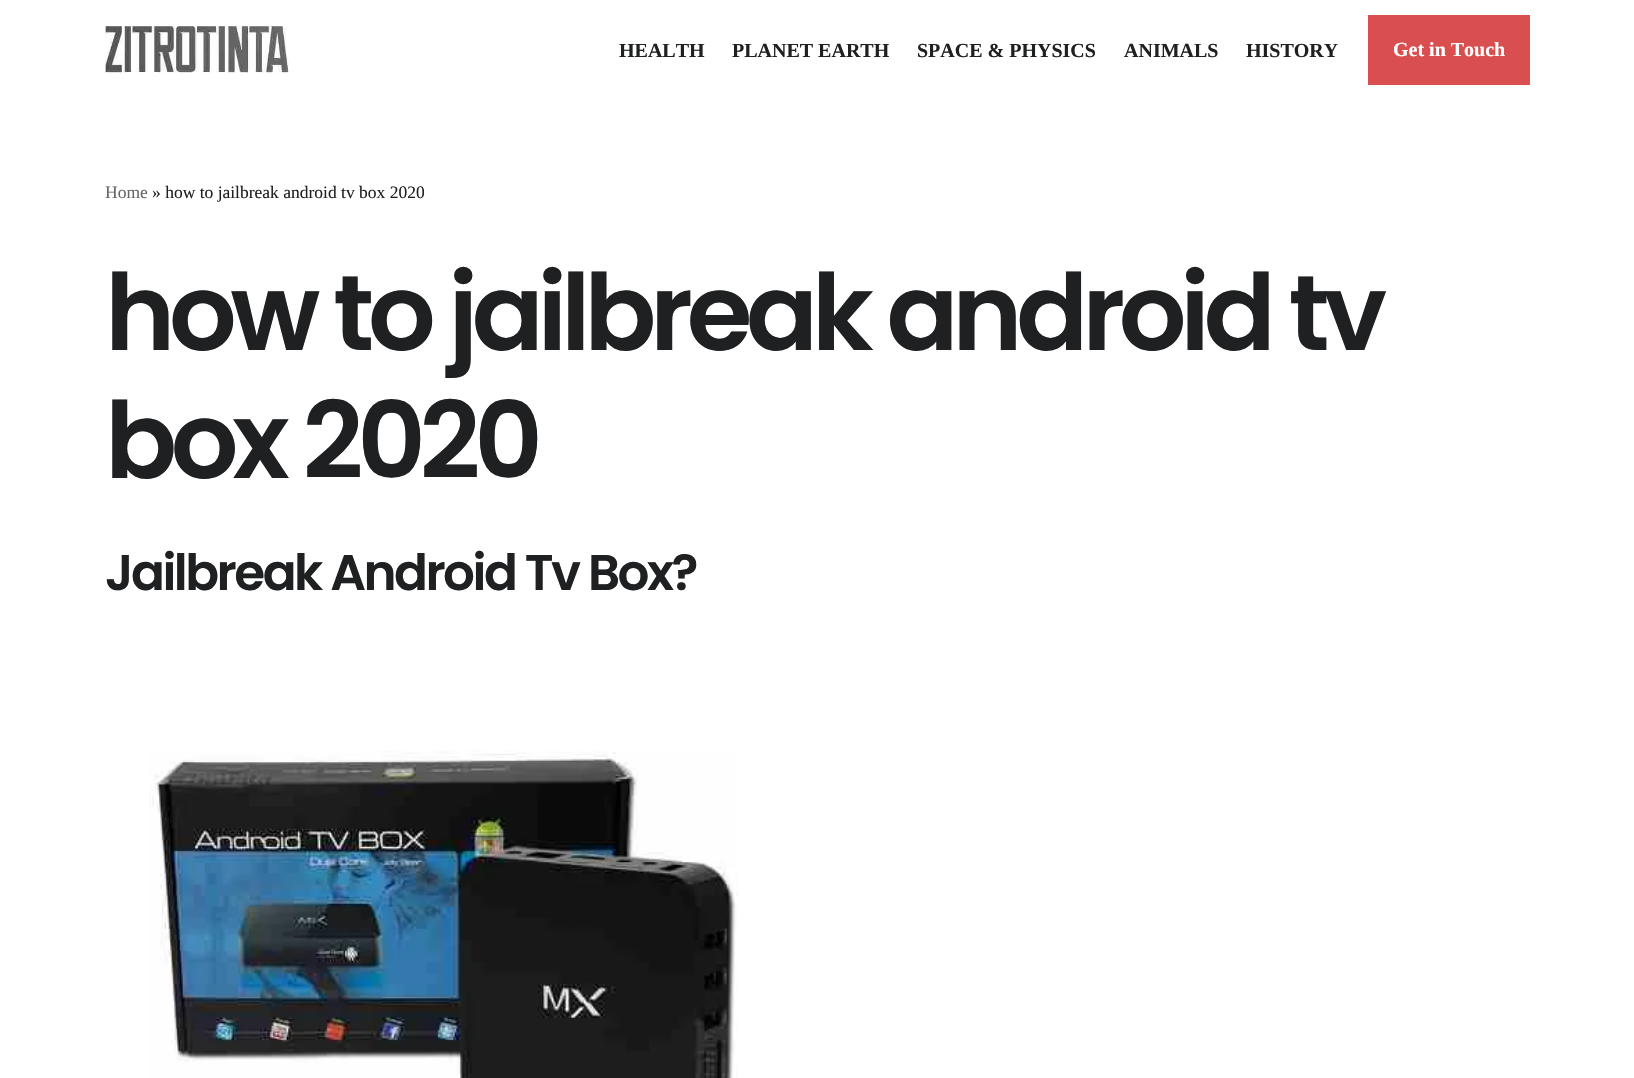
void draw(SkCanvas* canvas) {
    SkPaint paint;
    paint.setAntiAlias(true);
    auto spacedText = [&](const char* s, float x, float y, const SkFont& font, const SkPaint& ink, float letter, float word) {
        std::vector<SkGlyphID> glyphs(font.countText(s, strlen(s), SkTextEncoding::kUTF8));
        std::vector<float> xs(glyphs.size());
        font.textToGlyphs(s, strlen(s), SkTextEncoding::kUTF8, glyphs);
        font.getXPos(glyphs, xs, x);
        float extra = 0;
        for (size_t i = 0; i < glyphs.size(); i++) {
            xs[i] += extra;
            extra += letter + word * (glyphs[i] == font.unicharToGlyph(' '));
        }
        canvas->drawTextBlob(SkTextBlob::MakeFromPosHGlyphs(glyphs, xs, y, font), 0, 0, ink);
    };
    canvas->clear(0xFFFFFFFF);
    canvas->drawImageRect(SkImages::DeferredFromEncodedData(SkData::MakeFromFileName("img1.png")), SkRect::MakeXYWH(105, 26, 184, 47), SkSamplingOptions());
    SkFont font1(fontMgr->matchFamilyStyle("Liberation Serif", SkFontStyle::Bold()), 20);
    font1.setSubpixel(true);
    paint.setColor(0xFF1F2021);
    canvas->drawString("HEALTH", 619, 57, font1, paint);
    canvas->drawString("PLANET EARTH", 732, 57, font1, paint);
    canvas->drawString("SPACE & PHYSICS", 917, 57, font1, paint);
    canvas->drawString("ANIMALS", 1124, 57, font1, paint);
    canvas->drawString("HISTORY", 1246, 57, font1, paint);
    paint.setColor(0xFFD94F4F);
    canvas->drawRect(SkRect::MakeXYWH(1368, 15, 162, 70), paint);
    paint.setColor(0xFFFFFFFF);
    canvas->drawString("Get in Touch", 1393, 56, font1, paint);
    SkFont font2(fontMgr->matchFamilyStyle("Liberation Serif", SkFontStyle::Normal()), 17.5f);
    font2.setSubpixel(true);
    paint.setColor(0xFF676767);
    canvas->drawString("Home", 105, 198, font2, paint);
    paint.setColor(0xFF1F2021);
    canvas->drawString("» how to jailbreak android tv box 2020", 152, 198, font2, paint);
    SkFont font3(fontMgr->matchFamilyStyle("Poppins", SkFontStyle(600, SkFontStyle::kNormal_Width, SkFontStyle::kUpright_Slant)), 106.25f);
    font3.setSubpixel(true);
    spacedText("how to jailbreak android tv", 105, 350, font3, paint, -6.25f, 0);
    spacedText("box 2020", 105, 478, font3, paint, -6.25f, 0);
    SkFont font4(fontMgr->matchFamilyStyle("Poppins", SkFontStyle(600, SkFontStyle::kNormal_Width, SkFontStyle::kUpright_Slant)), 50);
    font4.setSubpixel(true);
    spacedText("Jailbreak Android Tv Box?", 105, 590, font4, paint, -2.5f, 0);
    canvas->drawImageRect(SkImages::DeferredFromEncodedData(SkData::MakeFromFileName("img2.png")), SkRect::MakeXYWH(149, 750, 589, 328), SkSamplingOptions());
}
